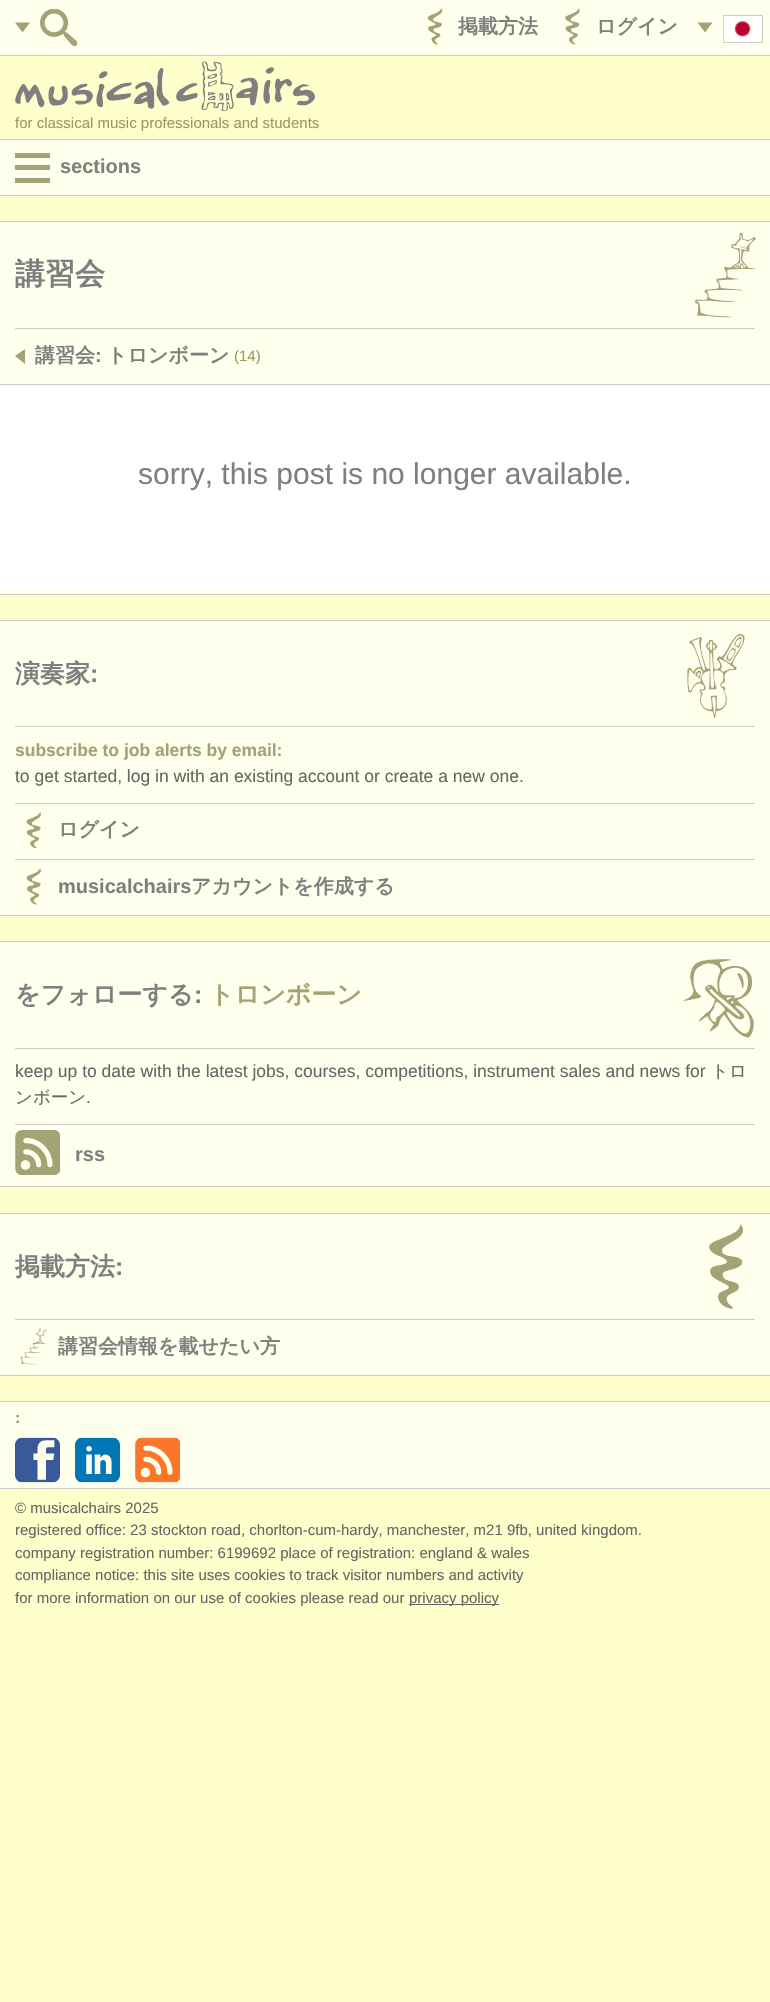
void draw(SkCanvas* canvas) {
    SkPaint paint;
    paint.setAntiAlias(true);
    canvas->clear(0xFFFFFFCC);
    paint.setColor(0xFFFFFFED);
    canvas->drawRect(SkRect::MakeXYWH(0, 0, 770, 55), paint);
    paint.setColor(0xFFCCCCCC);
    canvas->drawRect(SkRect::MakeXYWH(0, 55, 770, 1), paint);
    paint.setColor(0xFFA3A375);
    canvas->drawPath(SkPathBuilder().moveTo(15, 22.5f).lineTo(30, 22.5f).lineTo(22.5f, 32.5f).close().detach(), paint);
    canvas->drawImageRect(SkImages::DeferredFromEncodedData(SkData::MakeFromFileName("img1.png")), SkRect::MakeXYWH(40, 9, 38, 37), SkSamplingOptions());
    canvas->drawImageRect(SkImages::DeferredFromEncodedData(SkData::MakeFromFileName("img2.png")), SkRect::MakeXYWH(427, 8, 16, 37), SkSamplingOptions());
    SkFont font1(fontMgr->matchFamilyStyle("WenQuanYi Zen Hei", SkFontStyle::Bold()), 20);
    font1.setSubpixel(true);
    paint.setColor(0xFF7F7F7F);
    canvas->drawString("掲載方法", 458, 33, font1, paint);
    canvas->drawImageRect(SkImages::DeferredFromEncodedData(SkData::MakeFromFileName("img3.png")), SkRect::MakeXYWH(565, 8, 15, 37), SkSamplingOptions());
    canvas->drawString("ログイン", 596, 33, font1, paint);
    paint.setColor(0xFFA3A375);
    canvas->drawPath(SkPathBuilder().moveTo(697.5f, 22.5f).lineTo(712.5f, 22.5f).lineTo(705, 32.5f).close().detach(), paint);
    paint.setStyle(SkPaint::kStroke_Style);
    paint.setStrokeWidth(1);
    paint.setColor(0xFFCCCCCC);
    canvas->drawRect(SkRect::MakeXYWH(723.5f, 15.5f, 39, 27), paint);
    canvas->drawImageRect(SkImages::DeferredFromEncodedData(SkData::MakeFromFileName("img4.png")), SkRect::MakeXYWH(723, 16, 39, 26), SkSamplingOptions());
    canvas->drawImageRect(SkImages::DeferredFromEncodedData(SkData::MakeFromFileName("img5.png")), SkRect::MakeXYWH(15, 61, 300, 50), SkSamplingOptions());
    SkFont font2(fontMgr->matchFamilyStyle("Liberation Sans", SkFontStyle::Normal()), 15);
    font2.setSubpixel(true);
    paint.setStyle(SkPaint::kFill_Style);
    paint.setColor(0xFF999966);
    canvas->drawString("for classical music professionals and students", 15, 128, font2, paint);
    paint.setColor(0xFFFFFFED);
    canvas->drawRect(SkRect::MakeXYWH(0, 140, 770, 55), paint);
    paint.setColor(0xFFCCCCCC);
    canvas->drawRect(SkRect::MakeXYWH(0, 139, 770, 1), paint);
    canvas->drawRect(SkRect::MakeXYWH(0, 195, 770, 1), paint);
    paint.setColor(0xFFA3A375);
    canvas->drawRect(SkRect::MakeXYWH(15, 153, 35, 5), paint);
    canvas->drawRect(SkRect::MakeXYWH(15, 165, 35, 5), paint);
    canvas->drawRect(SkRect::MakeXYWH(15, 178, 35, 5), paint);
    SkFont font3(fontMgr->matchFamilyStyle("Liberation Sans", SkFontStyle::Bold()), 20);
    font3.setSubpixel(true);
    paint.setColor(0xFF7F7F7F);
    canvas->drawString("sections", 60, 173, font3, paint);
    paint.setColor(0xFFFFFFED);
    canvas->drawRect(SkRect::MakeXYWH(0, 222, 770, 372), paint);
    paint.setColor(0xFFCCCCCC);
    canvas->drawRect(SkRect::MakeXYWH(0, 221, 770, 1), paint);
    canvas->drawRect(SkRect::MakeXYWH(0, 594, 770, 1), paint);
    SkFont font4(fontMgr->matchFamilyStyle("WenQuanYi Zen Hei", SkFontStyle::Bold()), 30);
    font4.setSubpixel(true);
    paint.setColor(0xFF7F7F7F);
    canvas->drawString("講習会", 15, 284, font4, paint);
    canvas->drawImageRect(SkImages::DeferredFromEncodedData(SkData::MakeFromFileName("img6.png")), SkRect::MakeXYWH(695, 232, 61, 86), SkSamplingOptions());
    paint.setColor(0xFFCCCCCC);
    canvas->drawRect(SkRect::MakeXYWH(15, 328, 740, 1), paint);
    paint.setColor(0xFFA3A375);
    canvas->drawPath(SkPathBuilder().moveTo(25, 349).lineTo(25, 364).lineTo(15, 356).close().detach(), paint);
    paint.setColor(0xFF7F7F7F);
    canvas->drawString("講習会", 35, 362, font1, paint);
    canvas->drawString(":", 95, 362, font3, paint);
    canvas->drawString("トロンボーン", 107, 362, font1, paint);
    paint.setColor(0xFF999966);
    canvas->drawString("(14)", 234, 361, font2, paint);
    paint.setColor(0xFFFFFFFF);
    canvas->drawRect(SkRect::MakeXYWH(0, 385, 770, 205), paint);
    paint.setColor(0xFFCCCCCC);
    canvas->drawRect(SkRect::MakeXYWH(0, 384, 770, 1), paint);
    SkFont font5(fontMgr->matchFamilyStyle("Liberation Sans", SkFontStyle::Normal()), 30);
    font5.setSubpixel(true);
    paint.setColor(0xFF7F7F7F);
    canvas->drawString("sorry, this post is no longer available.", 138, 484, font5, paint);
    paint.setColor(0xFFFFFFED);
    canvas->drawRect(SkRect::MakeXYWH(0, 621, 770, 294), paint);
    paint.setColor(0xFFCCCCCC);
    canvas->drawRect(SkRect::MakeXYWH(0, 620, 770, 1), paint);
    canvas->drawRect(SkRect::MakeXYWH(0, 915, 770, 1), paint);
    SkFont font6(fontMgr->matchFamilyStyle("WenQuanYi Zen Hei", SkFontStyle::Bold()), 25);
    font6.setSubpixel(true);
    paint.setColor(0xFF7F7F7F);
    canvas->drawString("演奏家", 15, 682, font6, paint);
    SkFont font7(fontMgr->matchFamilyStyle("Liberation Sans", SkFontStyle::Bold()), 25);
    font7.setSubpixel(true);
    canvas->drawString(":", 90, 682, font7, paint);
    canvas->drawImageRect(SkImages::DeferredFromEncodedData(SkData::MakeFromFileName("img7.png")), SkRect::MakeXYWH(687, 633, 58, 86), SkSamplingOptions());
    paint.setColor(0xFFCCCCCC);
    canvas->drawRect(SkRect::MakeXYWH(15, 726, 740, 1), paint);
    SkFont font8(fontMgr->matchFamilyStyle("Liberation Sans", SkFontStyle::Bold()), 17.5f);
    font8.setSubpixel(true);
    paint.setColor(0xFFA3A375);
    canvas->drawString("subscribe to job alerts by email:", 15, 756, font8, paint);
    SkFont font9(fontMgr->matchFamilyStyle("Liberation Sans", SkFontStyle::Normal()), 17.5f);
    font9.setSubpixel(true);
    paint.setColor(0xFF666666);
    canvas->drawString("to get started, log in with an existing account or create a new one.", 15, 782, font9, paint);
    paint.setColor(0xFFCCCCCC);
    canvas->drawRect(SkRect::MakeXYWH(15, 803, 740, 1), paint);
    canvas->drawImageRect(SkImages::DeferredFromEncodedData(SkData::MakeFromFileName("img8.png")), SkRect::MakeXYWH(26, 812, 15, 37), SkSamplingOptions());
    paint.setColor(0xFF7F7F7F);
    canvas->drawString("ログイン", 58, 836, font1, paint);
    paint.setColor(0xFFCCCCCC);
    canvas->drawRect(SkRect::MakeXYWH(15, 859, 740, 1), paint);
    canvas->drawImageRect(SkImages::DeferredFromEncodedData(SkData::MakeFromFileName("img9.png")), SkRect::MakeXYWH(26, 868, 15, 37), SkSamplingOptions());
    paint.setColor(0xFF7F7F7F);
    canvas->drawString("musicalchairs", 58, 893, font3, paint);
    canvas->drawString("アカウントを作成する", 191, 893, font1, paint);
    paint.setColor(0xFFFFFFED);
    canvas->drawRect(SkRect::MakeXYWH(0, 942, 770, 246), paint);
    paint.setColor(0xFFCCCCCC);
    canvas->drawRect(SkRect::MakeXYWH(0, 941, 770, 1), paint);
    canvas->drawRect(SkRect::MakeXYWH(0, 1186, 770, 1), paint);
    paint.setColor(0xFF7F7F7F);
    canvas->drawString("をフォローする", 15, 1003, font6, paint);
    canvas->drawString(":", 194, 1003, font7, paint);
    paint.setColor(0xFFA3A375);
    canvas->drawString("トロンボーン", 209, 1003, font6, paint);
    canvas->drawImageRect(SkImages::DeferredFromEncodedData(SkData::MakeFromFileName("img10.png")), SkRect::MakeXYWH(682, 959, 72, 79), SkSamplingOptions());
    paint.setColor(0xFFCCCCCC);
    canvas->drawRect(SkRect::MakeXYWH(15, 1048, 740, 1), paint);
    paint.setColor(0xFF666666);
    canvas->drawString("keep up to date with the latest jobs, courses, competitions, instrument sales and news for", 15, 1077, font9, paint);
    SkFont font10(fontMgr->matchFamilyStyle("WenQuanYi Zen Hei", SkFontStyle(500, SkFontStyle::kNormal_Width, SkFontStyle::kUpright_Slant)), 17.5f);
    font10.setSubpixel(true);
    canvas->drawString("トロ", 711, 1077, font10, paint);
    canvas->drawString("ンボーン", 15, 1103, font10, paint);
    canvas->drawString(".", 86, 1103, font9, paint);
    paint.setColor(0xFFCCCCCC);
    canvas->drawRect(SkRect::MakeXYWH(15, 1124, 740, 1), paint);
    canvas->drawImageRect(SkImages::DeferredFromEncodedData(SkData::MakeFromFileName("img11.png")), SkRect::MakeXYWH(15, 1130, 45, 45), SkSamplingOptions());
    paint.setColor(0xFF7F7F7F);
    canvas->drawString("rss", 75, 1161, font3, paint);
    paint.setColor(0xFFFFFFED);
    canvas->drawRect(SkRect::MakeXYWH(0, 1214, 770, 161), paint);
    paint.setColor(0xFFCCCCCC);
    canvas->drawRect(SkRect::MakeXYWH(0, 1213, 770, 1), paint);
    canvas->drawRect(SkRect::MakeXYWH(0, 1375, 770, 1), paint);
    paint.setColor(0xFF7F7F7F);
    canvas->drawString("掲載方法", 15, 1275, font6, paint);
    canvas->drawString(":", 115, 1275, font7, paint);
    canvas->drawImageRect(SkImages::DeferredFromEncodedData(SkData::MakeFromFileName("img12.png")), SkRect::MakeXYWH(709, 1224, 34, 85), SkSamplingOptions());
    paint.setColor(0xFFCCCCCC);
    canvas->drawRect(SkRect::MakeXYWH(15, 1319, 740, 1), paint);
    canvas->drawImageRect(SkImages::DeferredFromEncodedData(SkData::MakeFromFileName("img13.png")), SkRect::MakeXYWH(20, 1328, 27, 37), SkSamplingOptions());
    paint.setColor(0xFF7F7F7F);
    canvas->drawString("講習会情報を載せたい方", 58, 1353, font1, paint);
    paint.setColor(0xFFFFFFED);
    canvas->drawRect(SkRect::MakeXYWH(0, 1402, 770, 86), paint);
    paint.setColor(0xFFCCCCCC);
    canvas->drawRect(SkRect::MakeXYWH(0, 1401, 770, 1), paint);
    canvas->drawRect(SkRect::MakeXYWH(0, 1488, 770, 1), paint);
    SkFont font11(fontMgr->matchFamilyStyle("Liberation Sans", SkFontStyle::Bold()), 16);
    font11.setSubpixel(true);
    paint.setColor(0xFF999966);
    canvas->drawString(":", 15, 1423, font11, paint);
    canvas->drawImageRect(SkImages::DeferredFromEncodedData(SkData::MakeFromFileName("img14.png")), SkRect::MakeXYWH(15, 1437, 45, 46), SkSamplingOptions());
    canvas->drawImageRect(SkImages::DeferredFromEncodedData(SkData::MakeFromFileName("img15.png")), SkRect::MakeXYWH(75, 1437, 45, 46), SkSamplingOptions());
    canvas->drawImageRect(SkImages::DeferredFromEncodedData(SkData::MakeFromFileName("img16.png")), SkRect::MakeXYWH(135, 1437, 45, 46), SkSamplingOptions());
    paint.setColor(0xFF666666);
    canvas->drawString("© musicalchairs 2025", 15, 1513, font2, paint);
    canvas->drawString("registered office: 23 stockton road, chorlton-cum-hardy, manchester, m21 9fb, united kingdom.", 15, 1535, font2, paint);
    canvas->drawString("company registration number: 6199692 place of registration: england & wales", 15, 1558, font2, paint);
    canvas->drawString("compliance notice: this site uses cookies to track visitor numbers and activity", 15, 1580, font2, paint);
    canvas->drawString("for more information on our use of cookies please read our", 15, 1603, font2, paint);
    canvas->drawRect(SkRect::MakeXYWH(409, 1604, 90, 1), paint);
    canvas->drawString("privacy policy", 409, 1603, font2, paint);
}
